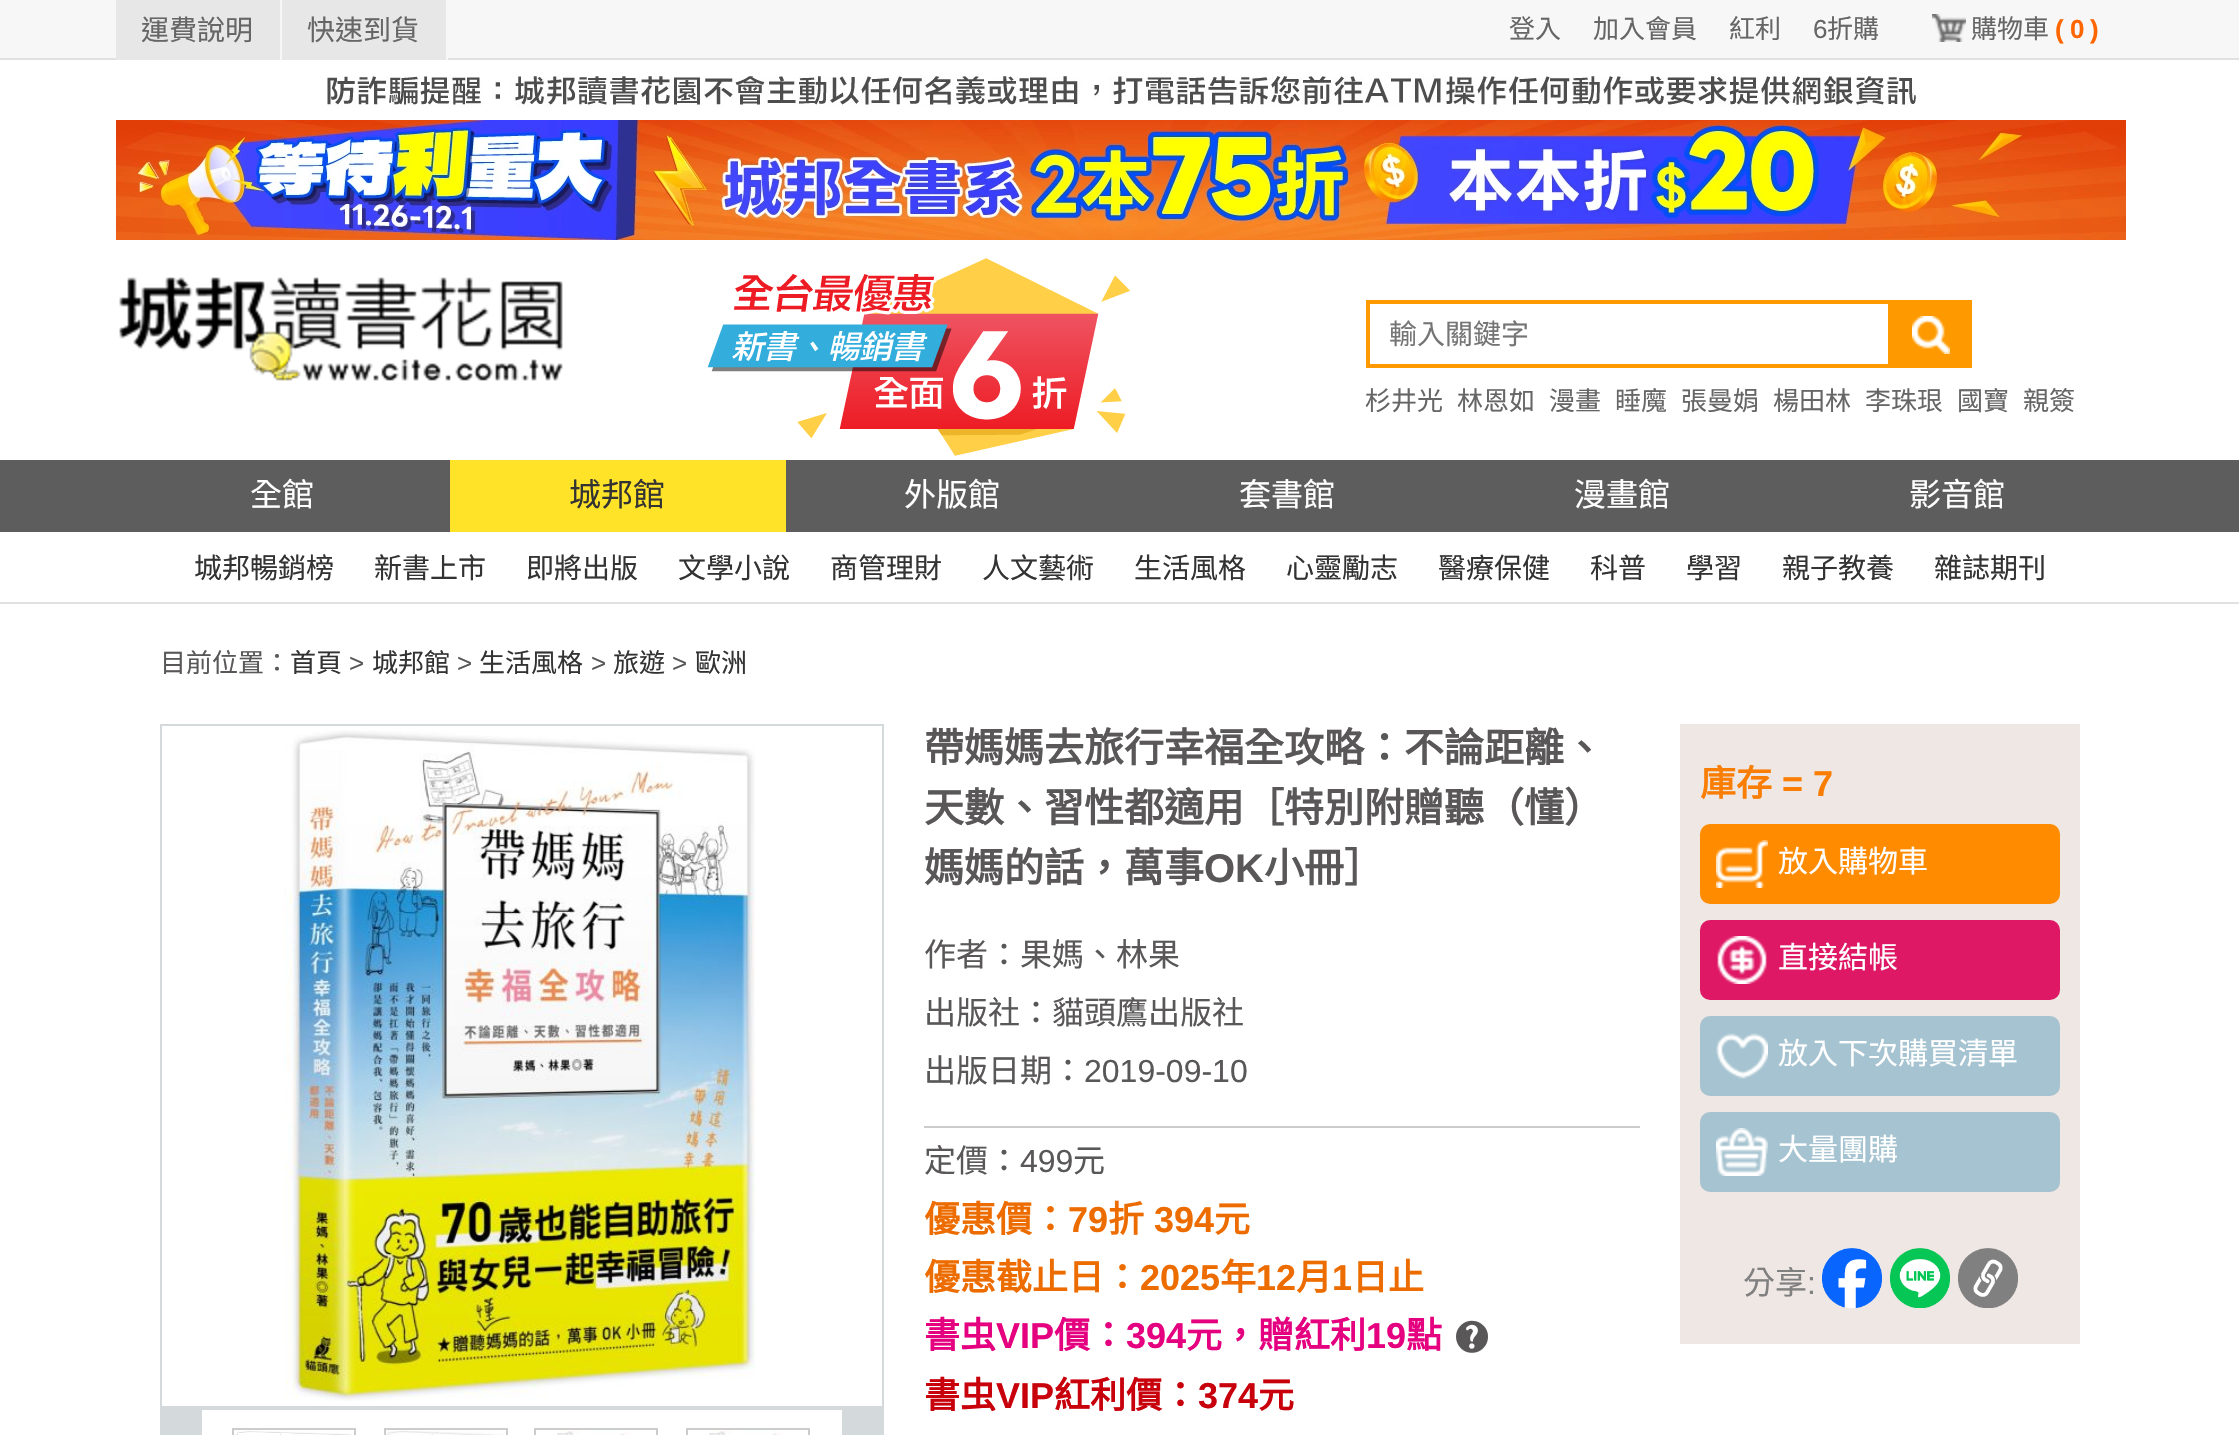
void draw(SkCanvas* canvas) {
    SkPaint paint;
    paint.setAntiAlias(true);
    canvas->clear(0xFFFFFFFF);
    paint.setColor(0xFFF7F7F7);
    canvas->drawRect(SkRect::MakeXYWH(0, 0, 2239, 58), paint);
    paint.setColor(0xFFE1E1E1);
    canvas->drawRect(SkRect::MakeXYWH(0, 58, 2239, 2), paint);
    paint.setColor(0xFFE7E7E7);
    canvas->drawRect(SkRect::MakeXYWH(116, 0, 164, 60), paint);
    paint.setColor(0xFFF7F7F7);
    canvas->drawRect(SkRect::MakeXYWH(280, 58, 2, 2), paint);
    SkFont font1(fontMgr->matchFamilyStyle("Noto Sans CJK TC", SkFontStyle::Normal()), 28);
    font1.setSubpixel(true);
    paint.setColor(0xFF666666);
    canvas->drawString("運費說明", 141, 40, font1, paint);
    paint.setColor(0xFFE7E7E7);
    canvas->drawRect(SkRect::MakeXYWH(282, 0, 164, 60), paint);
    paint.setColor(0xFFF7F7F7);
    canvas->drawRect(SkRect::MakeXYWH(446, 58, 2, 2), paint);
    paint.setColor(0xFF666666);
    canvas->drawString("快速到貨", 307, 40, font1, paint);
    SkFont font2(fontMgr->matchFamilyStyle("Noto Sans CJK TC", SkFontStyle::Normal()), 26);
    font2.setSubpixel(true);
    canvas->drawString("登入", 1509, 38, font2, paint);
    canvas->drawString("加入會員", 1593, 38, font2, paint);
    canvas->drawString("紅利", 1729, 38, font2, paint);
    SkFont font3(fontMgr->matchFamilyStyle("Liberation Sans", SkFontStyle::Normal()), 26);
    font3.setSubpixel(true);
    canvas->drawString("6", 1813, 38, font3, paint);
    canvas->drawString("折購", 1827, 38, font2, paint);
    canvas->drawImageRect(SkImages::DeferredFromEncodedData(SkData::MakeFromFileName("img1.png")), SkRect::MakeXYWH(1932, 14, 34, 28), SkSamplingOptions());
    canvas->drawString("購物車", 1971, 38, font2, paint);
    SkFont font4(fontMgr->matchFamilyStyle("Liberation Sans", SkFontStyle::Bold()), 26);
    font4.setSubpixel(true);
    paint.setColor(0xFFFF6600);
    canvas->drawString("(", 2055, 38, font4, paint);
    canvas->drawString("0", 2070, 38, font4, paint);
    canvas->drawString(")", 2090, 38, font4, paint);
    canvas->drawImageRect(SkImages::DeferredFromEncodedData(SkData::MakeFromFileName("img2.png")), SkRect::MakeXYWH(327, 76, 1589, 32), SkSamplingOptions());
    canvas->drawImageRect(SkImages::DeferredFromEncodedData(SkData::MakeFromFileName("img3.png")), SkRect::MakeXYWH(116, 120, 2010, 120), SkSamplingOptions());
    canvas->drawImageRect(SkImages::DeferredFromEncodedData(SkData::MakeFromFileName("img4.png")), SkRect::MakeXYWH(119, 277, 444, 104), SkSamplingOptions());
    canvas->drawImageRect(SkImages::DeferredFromEncodedData(SkData::MakeFromFileName("img5.png")), SkRect::MakeXYWH(707, 258, 423, 198), SkSamplingOptions());
    paint.setStyle(SkPaint::kStroke_Style);
    paint.setStrokeWidth(4);
    paint.setColor(0xFFFE9900);
    canvas->drawRect(SkRect::MakeXYWH(1368, 302, 522, 64), paint);
    paint.setStyle(SkPaint::kFill_Style);
    paint.setColor(0xFF757575);
    canvas->drawString("輸入關鍵字", 1389, 344, font1, paint);
    paint.setColor(0xFFFE9900);
    canvas->drawRect(SkRect::MakeXYWH(1892, 300, 80, 68), paint);
    canvas->drawImageRect(SkImages::DeferredFromEncodedData(SkData::MakeFromFileName("img6.png")), SkRect::MakeXYWH(1912, 316, 38, 38), SkSamplingOptions());
    paint.setColor(0xFF666666);
    canvas->drawString("杉井光", 1365, 410, font2, paint);
    canvas->drawString("林恩如", 1457, 410, font2, paint);
    canvas->drawString("漫畫", 1549, 410, font2, paint);
    canvas->drawString("睡魔", 1615, 410, font2, paint);
    canvas->drawString("張曼娟", 1681, 410, font2, paint);
    canvas->drawString("楊田林", 1773, 410, font2, paint);
    canvas->drawString("李珠珢", 1865, 410, font2, paint);
    canvas->drawString("國寶", 1957, 410, font2, paint);
    canvas->drawString("親簽", 2023, 410, font2, paint);
    paint.setColor(0xFF5D5D5D);
    canvas->drawRect(SkRect::MakeXYWH(0, 460, 2239, 72), paint);
    SkFont font5(fontMgr->matchFamilyStyle("Noto Sans CJK TC", SkFontStyle::Normal()), 32);
    font5.setSubpixel(true);
    paint.setColor(0xFFFFFFFF);
    canvas->drawString("全館", 250, 506, font5, paint);
    paint.setColor(0xFFFFE329);
    canvas->drawRect(SkRect::MakeXYWH(450, 460, 336, 72), paint);
    paint.setColor(0xFF333333);
    canvas->drawString("城邦館", 569, 506, font5, paint);
    paint.setColor(0xFFFFFFFF);
    canvas->drawString("外版館", 904, 506, font5, paint);
    canvas->drawString("套書館", 1239, 506, font5, paint);
    canvas->drawString("漫畫館", 1574, 506, font5, paint);
    canvas->drawString("影音館", 1909, 506, font5, paint);
    paint.setColor(0xFFE1E1E1);
    canvas->drawRect(SkRect::MakeXYWH(0, 602, 2239, 2), paint);
    paint.setColor(0xFF333333);
    canvas->drawString("城邦暢銷榜", 194, 578, font1, paint);
    canvas->drawString("新書上市", 374, 578, font1, paint);
    canvas->drawString("即將出版", 526, 578, font1, paint);
    canvas->drawString("文學小說", 678, 578, font1, paint);
    canvas->drawString("商管理財", 830, 578, font1, paint);
    canvas->drawString("人文藝術", 982, 578, font1, paint);
    canvas->drawString("生活風格", 1134, 578, font1, paint);
    canvas->drawString("心靈勵志", 1286, 578, font1, paint);
    canvas->drawString("醫療保健", 1438, 578, font1, paint);
    canvas->drawString("科普", 1590, 578, font1, paint);
    canvas->drawString("學習", 1686, 578, font1, paint);
    canvas->drawString("親子教養", 1782, 578, font1, paint);
    canvas->drawString("雜誌期刊", 1934, 578, font1, paint);
    paint.setColor(0xFF595757);
    canvas->drawString("目前位置：", 160, 672, font2, paint);
    paint.setColor(0xFF333333);
    canvas->drawString("首頁", 290, 672, font2, paint);
    paint.setColor(0xFF595757);
    canvas->drawString(">", 349, 672, font3, paint);
    paint.setColor(0xFF333333);
    canvas->drawString("城邦館", 372, 672, font2, paint);
    paint.setColor(0xFF595757);
    canvas->drawString(">", 457, 672, font3, paint);
    paint.setColor(0xFF333333);
    canvas->drawString("生活風格", 479, 672, font2, paint);
    paint.setColor(0xFF595757);
    canvas->drawString(">", 591, 672, font3, paint);
    paint.setColor(0xFF333333);
    canvas->drawString("旅遊", 613, 672, font2, paint);
    paint.setColor(0xFF595757);
    canvas->drawString(">", 672, 672, font3, paint);
    paint.setColor(0xFF333333);
    canvas->drawString("歐洲", 695, 672, font2, paint);
    paint.setStyle(SkPaint::kStroke_Style);
    paint.setStrokeWidth(2);
    paint.setColor(0xFFD4D9DC);
    canvas->drawRect(SkRect::MakeXYWH(161, 725, 722, 682), paint);
    canvas->drawImageRect(SkImages::DeferredFromEncodedData(SkData::MakeFromFileName("img7.png")), SkRect::MakeXYWH(284, 730, 471, 671), SkSamplingOptions());
    canvas->drawRect(SkRect::MakeXYWH(161, 1409, 722, 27), paint);
    paint.setStyle(SkPaint::kFill_Style);
    canvas->drawRect(SkRect::MakeXYWH(162, 1410, 40, 25), paint);
    paint.setStyle(SkPaint::kStroke_Style);
    paint.setColor(0xFFCCCCCC);
    canvas->drawRect(SkRect::MakeXYWH(233, 1429, 122, 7), paint);
    canvas->drawRect(SkRect::MakeXYWH(385, 1429, 122, 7), paint);
    canvas->drawRect(SkRect::MakeXYWH(535, 1429, 122, 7), paint);
    canvas->drawRect(SkRect::MakeXYWH(687, 1429, 122, 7), paint);
    canvas->drawImageRect(SkImages::DeferredFromEncodedData(SkData::MakeFromFileName("img8.png")), SkRect::MakeXYWH(234, 1430, 120, 5), SkSamplingOptions());
    canvas->drawImageRect(SkImages::DeferredFromEncodedData(SkData::MakeFromFileName("img9.png")), SkRect::MakeXYWH(386, 1430, 120, 5), SkSamplingOptions());
    canvas->drawImageRect(SkImages::DeferredFromEncodedData(SkData::MakeFromFileName("img10.png")), SkRect::MakeXYWH(536, 1430, 120, 5), SkSamplingOptions());
    canvas->drawImageRect(SkImages::DeferredFromEncodedData(SkData::MakeFromFileName("img11.png")), SkRect::MakeXYWH(688, 1430, 120, 5), SkSamplingOptions());
    paint.setStyle(SkPaint::kFill_Style);
    paint.setColor(0xFFD4D9DC);
    canvas->drawRect(SkRect::MakeXYWH(842, 1410, 40, 25), paint);
    SkFont font6(fontMgr->matchFamilyStyle("Noto Sans CJK TC", SkFontStyle::Bold()), 40);
    font6.setSubpixel(true);
    paint.setColor(0xFF595757);
    canvas->drawString("帶媽媽去旅行幸福全攻略：不論距離、", 924, 762, font6, paint);
    canvas->drawString("天數、習性都適用［特別附贈聽（懂）", 924, 822, font6, paint);
    canvas->drawString("媽媽的話，萬事", 924, 882, font6, paint);
    SkFont font7(fontMgr->matchFamilyStyle("Liberation Sans", SkFontStyle::Bold()), 40);
    font7.setSubpixel(true);
    canvas->drawString("OK", 1204, 882, font7, paint);
    canvas->drawString("小冊］", 1264, 882, font6, paint);
    canvas->drawString("作者：果媽、林果", 924, 966, font5, paint);
    canvas->drawString("出版社：貓頭鷹出版社", 924, 1024, font5, paint);
    canvas->drawString("出版日期：", 924, 1082, font5, paint);
    SkFont font8(fontMgr->matchFamilyStyle("Liberation Sans", SkFontStyle::Normal()), 32);
    font8.setSubpixel(true);
    canvas->drawString("2019-09-10", 1084, 1082, font8, paint);
    paint.setColor(0xFFCCCCCC);
    canvas->drawRect(SkRect::MakeXYWH(924, 1126, 716, 2), paint);
    paint.setColor(0xFF595757);
    canvas->drawString("定價：", 924, 1172, font5, paint);
    canvas->drawString("499", 1020, 1172, font8, paint);
    canvas->drawString("元", 1073, 1172, font5, paint);
    SkFont font9(fontMgr->matchFamilyStyle("Noto Sans CJK TC", SkFontStyle::Bold()), 36);
    font9.setSubpixel(true);
    paint.setColor(0xFFED6C00);
    canvas->drawString("優惠價：", 924, 1232, font9, paint);
    SkFont font10(fontMgr->matchFamilyStyle("Liberation Sans", SkFontStyle::Bold()), 36);
    font10.setSubpixel(true);
    canvas->drawString("79", 1068, 1232, font10, paint);
    canvas->drawString("折", 1108, 1232, font9, paint);
    canvas->drawString("394", 1154, 1232, font10, paint);
    canvas->drawString("元", 1214, 1232, font9, paint);
    canvas->drawString("優惠截止日：", 924, 1290, font9, paint);
    canvas->drawString("2025", 1140, 1290, font10, paint);
    canvas->drawString("年", 1220, 1290, font9, paint);
    canvas->drawString("12", 1256, 1290, font10, paint);
    canvas->drawString("月", 1296, 1290, font9, paint);
    canvas->drawString("1", 1332, 1290, font10, paint);
    canvas->drawString("日止", 1352, 1290, font9, paint);
    paint.setColor(0xFFE4007F);
    canvas->drawString("書虫", 924, 1348, font9, paint);
    canvas->drawString("VIP", 996, 1348, font10, paint);
    canvas->drawString("價：", 1054, 1348, font9, paint);
    canvas->drawString("394", 1126, 1348, font10, paint);
    canvas->drawString("元，贈紅利", 1186, 1348, font9, paint);
    canvas->drawString("19", 1366, 1348, font10, paint);
    canvas->drawString("點", 1406, 1348, font9, paint);
    canvas->drawImageRect(SkImages::DeferredFromEncodedData(SkData::MakeFromFileName("img12.png")), SkRect::MakeXYWH(1456, 1320, 32, 33), SkSamplingOptions());
    paint.setColor(0xFFC7000B);
    canvas->drawString("書虫", 924, 1408, font9, paint);
    canvas->drawString("VIP", 996, 1408, font10, paint);
    canvas->drawString("紅利價：", 1054, 1408, font9, paint);
    canvas->drawString("374", 1198, 1408, font10, paint);
    canvas->drawString("元", 1258, 1408, font9, paint);
    paint.setColor(0xFFEEE7E3);
    canvas->drawRect(SkRect::MakeXYWH(1680, 724, 400, 620), paint);
    paint.setColor(0xFFFA7E04);
    canvas->drawString("庫存", 1700, 796, font9, paint);
    canvas->drawString("= 7", 1782, 796, font10, paint);
    paint.setColor(0xFFFF8B00);
    canvas->drawRoundRect(SkRect::MakeXYWH(1700, 824, 360, 80), 10, 10, paint);
    canvas->drawImageRect(SkImages::DeferredFromEncodedData(SkData::MakeFromFileName("img13.png")), SkRect::MakeXYWH(1716, 840, 52, 48), SkSamplingOptions());
    SkFont font11(fontMgr->matchFamilyStyle("Noto Sans CJK TC", SkFontStyle::Normal()), 30);
    font11.setSubpixel(true);
    paint.setColor(0xFFFFFFFF);
    canvas->drawString("放入購物車", 1778, 872, font11, paint);
    paint.setColor(0xFFDF1866);
    canvas->drawRoundRect(SkRect::MakeXYWH(1700, 920, 360, 80), 10, 10, paint);
    canvas->drawImageRect(SkImages::DeferredFromEncodedData(SkData::MakeFromFileName("img14.png")), SkRect::MakeXYWH(1717, 936, 50, 48), SkSamplingOptions());
    paint.setColor(0xFFFFFFFF);
    canvas->drawString("直接結帳", 1778, 968, font11, paint);
    paint.setColor(0xFFA5C3D0);
    canvas->drawRoundRect(SkRect::MakeXYWH(1700, 1016, 360, 80), 10, 10, paint);
    canvas->drawImageRect(SkImages::DeferredFromEncodedData(SkData::MakeFromFileName("img15.png")), SkRect::MakeXYWH(1716, 1033, 52, 46), SkSamplingOptions());
    paint.setColor(0xFFFFFFFF);
    canvas->drawString("放入下次購買清單", 1778, 1064, font11, paint);
    paint.setColor(0xFFA5C3D0);
    canvas->drawRoundRect(SkRect::MakeXYWH(1700, 1112, 360, 80), 10, 10, paint);
    canvas->drawImageRect(SkImages::DeferredFromEncodedData(SkData::MakeFromFileName("img16.png")), SkRect::MakeXYWH(1716, 1128, 52, 48), SkSamplingOptions());
    paint.setColor(0xFFFFFFFF);
    canvas->drawString("大量團購", 1778, 1160, font11, paint);
    paint.setColor(0xFF808080);
    canvas->drawString("分享", 1743, 1294, font5, paint);
    canvas->drawString(":", 1807, 1294, font8, paint);
    canvas->drawImageRect(SkImages::DeferredFromEncodedData(SkData::MakeFromFileName("img17.png")), SkRect::MakeXYWH(1822, 1248, 60, 60), SkSamplingOptions());
    canvas->drawImageRect(SkImages::DeferredFromEncodedData(SkData::MakeFromFileName("img18.png")), SkRect::MakeXYWH(1890, 1248, 60, 60), SkSamplingOptions());
    canvas->drawImageRect(SkImages::DeferredFromEncodedData(SkData::MakeFromFileName("img19.png")), SkRect::MakeXYWH(1958, 1248, 60, 60), SkSamplingOptions());
}
